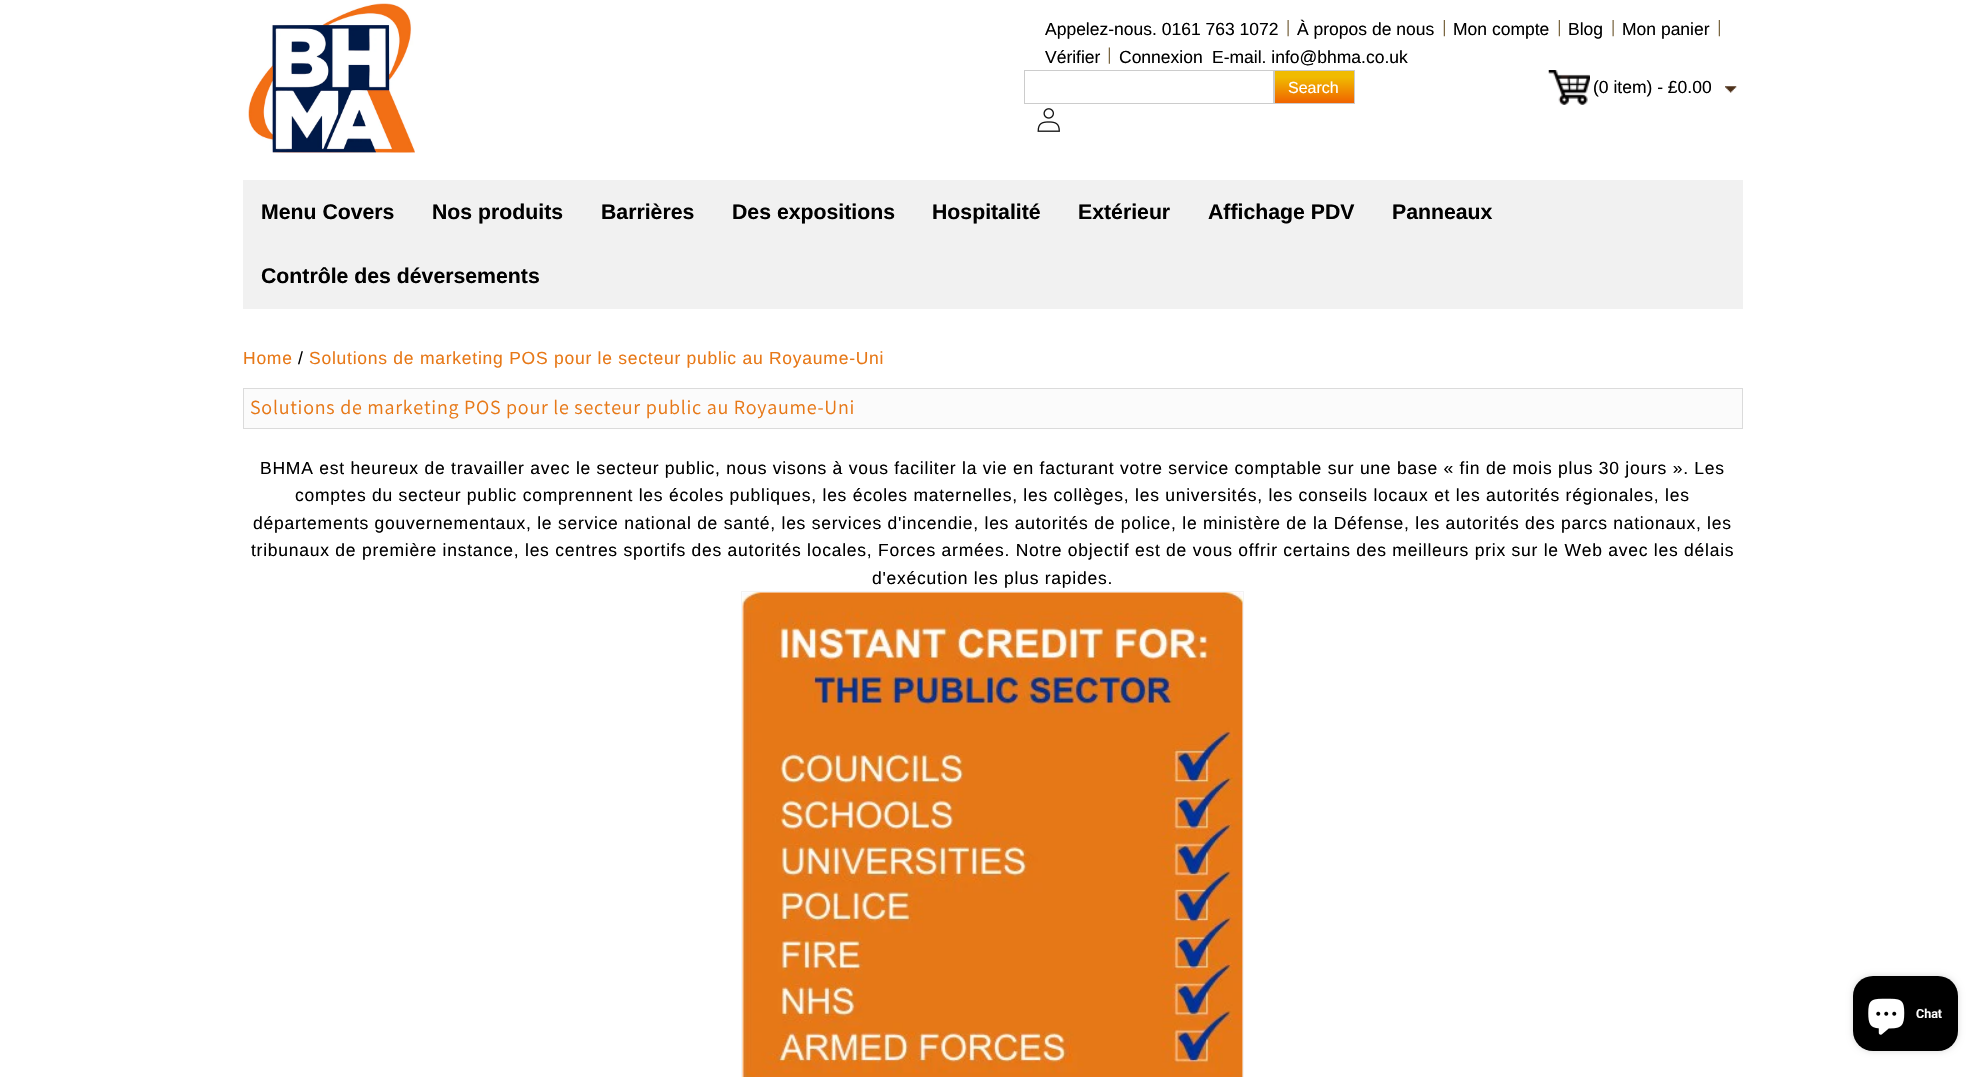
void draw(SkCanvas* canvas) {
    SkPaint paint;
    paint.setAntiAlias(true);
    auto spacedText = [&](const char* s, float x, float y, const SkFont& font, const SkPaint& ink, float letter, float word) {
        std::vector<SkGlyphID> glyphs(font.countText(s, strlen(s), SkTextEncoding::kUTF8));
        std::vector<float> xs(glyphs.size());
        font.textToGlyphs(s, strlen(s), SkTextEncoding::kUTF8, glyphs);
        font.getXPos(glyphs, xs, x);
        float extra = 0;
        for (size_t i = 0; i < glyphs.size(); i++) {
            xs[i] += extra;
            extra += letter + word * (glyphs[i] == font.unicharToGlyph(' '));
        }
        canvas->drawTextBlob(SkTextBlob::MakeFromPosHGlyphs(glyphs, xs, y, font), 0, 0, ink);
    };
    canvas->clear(0xFFFFFFFF);
    canvas->drawImageRect(SkImages::DeferredFromEncodedData(SkData::MakeFromFileName("img1.png")), SkRect::MakeXYWH(248, 3, 167, 150), SkSamplingOptions());
    canvas->drawImageRect(SkImages::DeferredFromEncodedData(SkData::MakeFromFileName("img2.png")), SkRect::MakeXYWH(1287, 20, 2, 17), SkSamplingOptions());
    SkFont font1(fontMgr->matchFamilyStyle("Liberation Sans", SkFontStyle::Normal()), 17.5f);
    font1.setSubpixel(true);
    paint.setColor(0xFF000000);
    canvas->drawString("Appelez-nous. 0161 763 1072", 1045, 35, font1, paint);
    canvas->drawImageRect(SkImages::DeferredFromEncodedData(SkData::MakeFromFileName("img3.png")), SkRect::MakeXYWH(1443, 20, 2, 17), SkSamplingOptions());
    canvas->drawString("À propos de nous", 1297, 35, font1, paint);
    canvas->drawImageRect(SkImages::DeferredFromEncodedData(SkData::MakeFromFileName("img3.png")), SkRect::MakeXYWH(1558, 20, 2, 17), SkSamplingOptions());
    canvas->drawString("Mon compte", 1453, 35, font1, paint);
    canvas->drawImageRect(SkImages::DeferredFromEncodedData(SkData::MakeFromFileName("img2.png")), SkRect::MakeXYWH(1612, 20, 2, 17), SkSamplingOptions());
    canvas->drawString("Blog", 1568, 35, font1, paint);
    canvas->drawImageRect(SkImages::DeferredFromEncodedData(SkData::MakeFromFileName("img3.png")), SkRect::MakeXYWH(1718, 20, 2, 17), SkSamplingOptions());
    canvas->drawString("Mon panier", 1622, 35, font1, paint);
    canvas->drawImageRect(SkImages::DeferredFromEncodedData(SkData::MakeFromFileName("img4.png")), SkRect::MakeXYWH(1108, 47, 2, 17), SkSamplingOptions());
    canvas->drawString("Vérifier", 1045, 63, font1, paint);
    canvas->drawString("Connexion", 1119, 63, font1, paint);
    canvas->drawString("E-mail. info@bhma.co.uk", 1212, 63, font1, paint);
    paint.setStyle(SkPaint::kStroke_Style);
    paint.setStrokeWidth(1);
    paint.setColor(0xFFCCCCCC);
    canvas->drawRect(SkRect::MakeXYWH(1024.5f, 70.5f, 249, 33), paint);
    paint.setStyle(SkPaint::kFill_Style);
    {
        const SkColor colors[] = {0xFFF06300, 0xFFF0BB00};
        const float stops[] = {0, 0.81f};
        const SkPoint ends[] = {{1314, 103}, {1314, 71}};
        paint.setShader(SkGradientShader::MakeLinear(ends, colors, stops, 2, SkTileMode::kClamp));
        paint.setAlpha(255);
    }
    canvas->drawRect(SkRect::MakeXYWH(1275, 71, 79, 32), paint);
    paint.setStyle(SkPaint::kStroke_Style);
    paint.setShader(nullptr);
    paint.setColor(0xFFCCCCCC);
    canvas->drawRect(SkRect::MakeXYWH(1274.5f, 70.5f, 80, 33), paint);
    SkFont font2(fontMgr->matchFamilyStyle("Liberation Sans", SkFontStyle::Normal()), 16);
    font2.setSubpixel(true);
    paint.setStyle(SkPaint::kFill_Style);
    paint.setColor(0xFFFFFFFF);
    canvas->drawString("Search", 1288, 93, font2, paint);
    canvas->drawImageRect(SkImages::DeferredFromEncodedData(SkData::MakeFromFileName("img5.png")), SkRect::MakeXYWH(1548, 70, 42, 35), SkSamplingOptions());
    paint.setColor(0xFF000000);
    canvas->drawString("(0 item) - £0.00", 1593, 93, font1, paint);
    canvas->drawImageRect(SkImages::DeferredFromEncodedData(SkData::MakeFromFileName("img6.png")), SkRect::MakeXYWH(1725, 86, 12, 7), SkSamplingOptions());
    canvas->drawImageRect(SkImages::DeferredFromEncodedData(SkData::MakeFromFileName("img7.png")), SkRect::MakeXYWH(1037, 108, 23, 24), SkSamplingOptions());
    paint.setColor(0xFFF1F1F1);
    canvas->drawRect(SkRect::MakeXYWH(243, 180, 1500, 129), paint);
    SkFont font3(fontMgr->matchFamilyStyle("Liberation Sans", SkFontStyle::Bold()), 21.25f);
    font3.setSubpixel(true);
    paint.setColor(0xFF000000);
    canvas->drawString("Menu Covers", 261, 219, font3, paint);
    canvas->drawString("Nos produits", 432, 219, font3, paint);
    canvas->drawString("Barrières", 601, 219, font3, paint);
    canvas->drawString("Des expositions", 732, 219, font3, paint);
    canvas->drawString("Hospitalité", 932, 219, font3, paint);
    canvas->drawString("Extérieur", 1078, 219, font3, paint);
    canvas->drawString("Affichage PDV", 1208, 219, font3, paint);
    canvas->drawString("Panneaux", 1392, 219, font3, paint);
    canvas->drawString("Contrôle des déversements", 261, 283, font3, paint);
    paint.setColor(0xFFE77817);
    spacedText("Home", 243, 364, font1, paint, 0.75f, 0);
    paint.setColor(0xFF000000);
    spacedText("/", 298, 364, font1, paint, 0.75f, 0);
    paint.setColor(0xFFE77817);
    spacedText("Solutions de marketing POS pour le secteur public au Royaume-Uni", 309, 364, font1, paint, 0.75f, 0);
    paint.setColor(0xFFFBFBFB);
    canvas->drawRect(SkRect::MakeXYWH(243.5f, 388.5f, 1499, 40), paint);
    paint.setStyle(SkPaint::kStroke_Style);
    paint.setColor(0xFFDBDBDB);
    canvas->drawRect(SkRect::MakeXYWH(243.5f, 388.5f, 1499, 40), paint);
    SkFont font4(fontMgr->matchFamilyStyle("Assistant", SkFontStyle::Normal()), 20);
    font4.setSubpixel(true);
    paint.setStyle(SkPaint::kFill_Style);
    paint.setColor(0xFFE77817);
    spacedText("Solutions de marketing POS pour le secteur public au Royaume-Uni", 250, 414, font4, paint, 0.75f, 0);
    paint.setColor(0xFF000000);
    spacedText("BHMA est heureux de travailler avec le secteur public, nous visons à vous faciliter la vie en facturant votre service comptable sur une base « fin de mois plus 30 jours ». Les", 260, 474, font1, paint, 0.75f, 0);
    spacedText("comptes du secteur public comprennent les écoles publiques, les écoles maternelles, les collèges, les universités, les conseils locaux et les autorités régionales, les", 295, 501, font1, paint, 0.75f, 0);
    spacedText("départements gouvernementaux, le service national de santé, les services d'incendie, les autorités de police, le ministère de la Défense, les autorités des parcs nationaux, les", 253, 529, font1, paint, 0.75f, 0);
    spacedText("tribunaux de première instance, les centres sportifs des autorités locales, Forces armées. Notre objectif est de vous offrir certains des meilleurs prix sur le Web avec les délais", 251, 556, font1, paint, 0.75f, 0);
    spacedText("d'exécution les plus rapides.", 872, 584, font1, paint, 0.75f, 0);
    paint.setStyle(SkPaint::kStroke_Style);
    paint.setColor(0xFFF3F3F3);
    canvas->drawRect(SkRect::MakeXYWH(741.5f, 591.5f, 502, 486), paint);
    canvas->drawImageRect(SkImages::DeferredFromEncodedData(SkData::MakeFromFileName("img8.png")), SkRect::MakeXYWH(742, 592, 501, 485), SkSamplingOptions());
    paint.setStyle(SkPaint::kFill_Style);
    paint.setColor(0x26000000);
    paint.setMaskFilter(SkMaskFilter::MakeBlur(kNormal_SkBlurStyle, 3));
    canvas->drawRoundRect(SkRect::MakeXYWH(1853, 976, 105, 75), 20, 20, paint);
    paint.setMaskFilter(nullptr);
    paint.setColor(0xFF000000);
    canvas->drawRoundRect(SkRect::MakeXYWH(1853, 976, 105, 75), 20, 20, paint);
    canvas->drawImageRect(SkImages::DeferredFromEncodedData(SkData::MakeFromFileName("img9.png")), SkRect::MakeXYWH(1868, 998, 37, 37), SkSamplingOptions());
    SkFont font5(fontMgr->matchFamilyStyle("Roboto", SkFontStyle(600, SkFontStyle::kNormal_Width, SkFontStyle::kUpright_Slant)), 12.5f);
    font5.setSubpixel(true);
    paint.setColor(0xFFFFFFFF);
    canvas->drawString("Chat", 1916, 1018, font5, paint);
}
